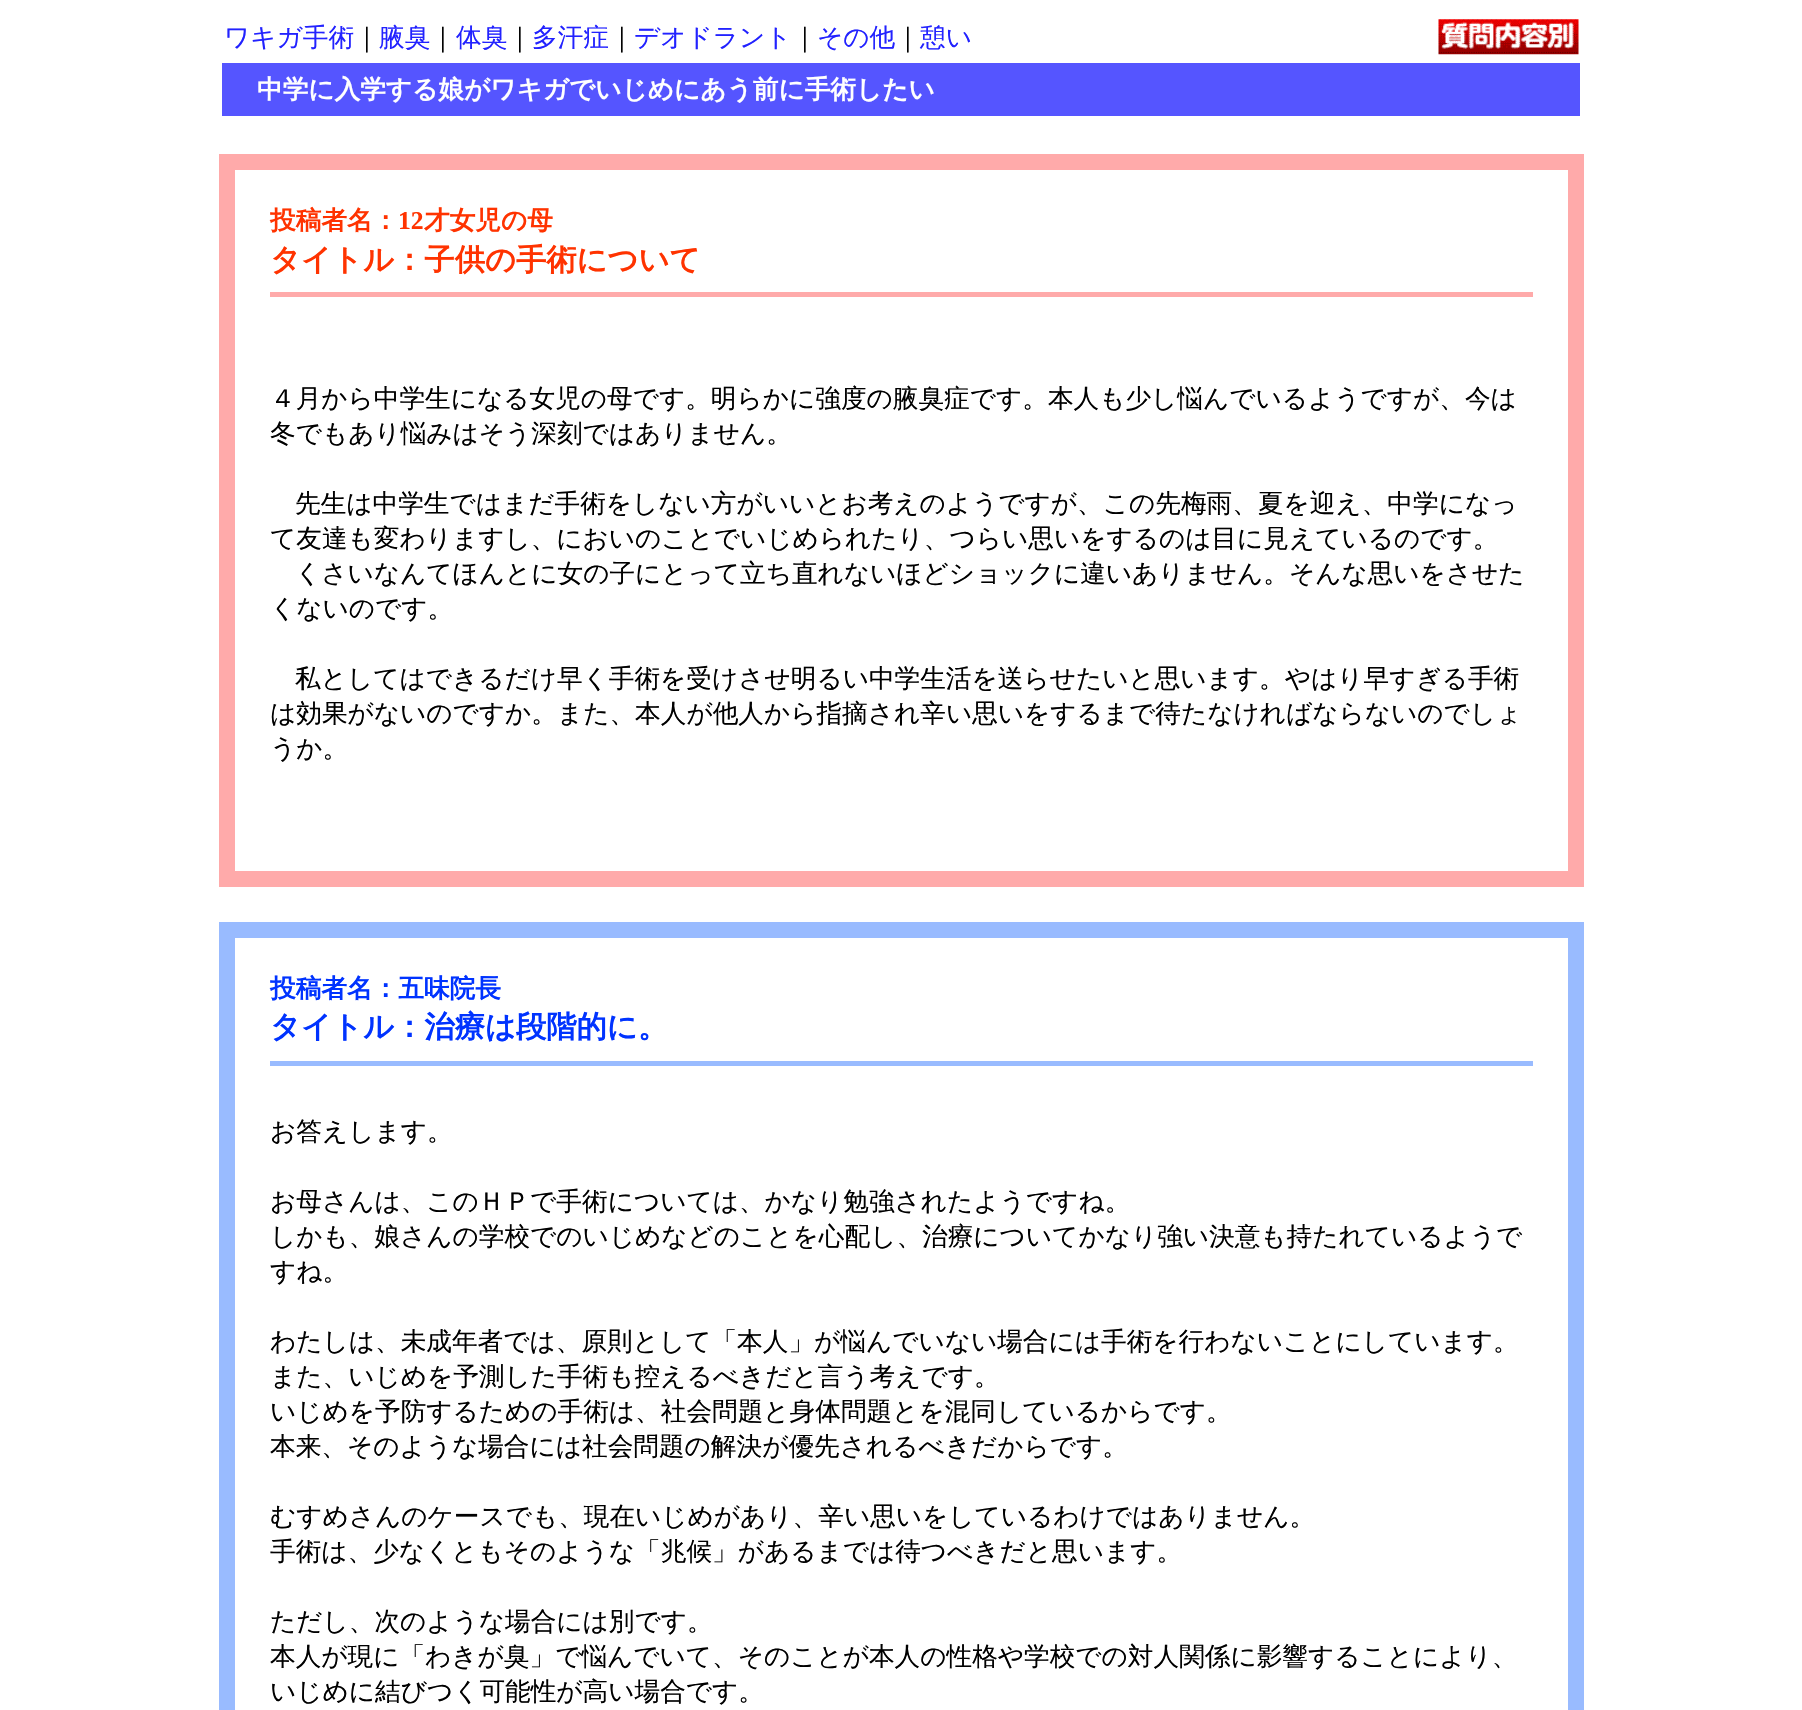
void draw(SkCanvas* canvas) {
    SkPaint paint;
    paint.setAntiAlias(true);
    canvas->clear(0xFFFFFFFF);
    SkFont font1(fontMgr->matchFamilyStyle("WenQuanYi Zen Hei", SkFontStyle(500, SkFontStyle::kNormal_Width, SkFontStyle::kUpright_Slant)), 25.65f);
    font1.setSubpixel(true);
    paint.setColor(0xFF2222FF);
    canvas->drawString("ワキガ手術", 224, 46, font1, paint);
    paint.setColor(0xFF000000);
    canvas->drawString("｜", 354, 46, font1, paint);
    paint.setColor(0xFF2222FF);
    canvas->drawString("腋臭", 379, 46, font1, paint);
    paint.setColor(0xFF000000);
    canvas->drawString("｜", 430, 46, font1, paint);
    paint.setColor(0xFF2222FF);
    canvas->drawString("体臭", 456, 46, font1, paint);
    paint.setColor(0xFF000000);
    canvas->drawString("｜", 507, 46, font1, paint);
    paint.setColor(0xFF2222FF);
    canvas->drawString("多汗症", 532, 46, font1, paint);
    paint.setColor(0xFF000000);
    canvas->drawString("｜", 609, 46, font1, paint);
    paint.setColor(0xFF2222FF);
    canvas->drawString("デオドラント", 634, 46, font1, paint);
    paint.setColor(0xFF000000);
    canvas->drawString("｜", 792, 46, font1, paint);
    paint.setColor(0xFF2222FF);
    canvas->drawString("その他", 817, 46, font1, paint);
    paint.setColor(0xFF000000);
    canvas->drawString("｜", 895, 46, font1, paint);
    paint.setColor(0xFF2222FF);
    canvas->drawString("憩い", 920, 46, font1, paint);
    canvas->drawImageRect(SkImages::DeferredFromEncodedData(SkData::MakeFromFileName("img1.png")), SkRect::MakeXYWH(1438, 19, 141, 36), SkSamplingOptions());
    paint.setColor(0xFF5555FF);
    canvas->drawRect(SkRect::MakeXYWH(222, 63, 1358, 53), paint);
    SkFont font2(fontMgr->matchFamilyStyle("WenQuanYi Zen Hei", SkFontStyle::Bold()), 25.65f);
    font2.setSubpixel(true);
    paint.setColor(0xFFFFFFFF);
    canvas->drawString("中学に入学する娘がワキガでいじめにあう前に手術したい", 257, 98, font2, paint);
    paint.setStyle(SkPaint::kStroke_Style);
    paint.setStrokeWidth(14);
    paint.setColor(0xFFFFAAAA);
    canvas->drawRect(SkRect::MakeXYWH(226, 161, 1351, 719), paint);
    paint.setStrokeWidth(2);
    canvas->drawRect(SkRect::MakeXYWH(234, 169, 1335, 703), paint);
    paint.setStyle(SkPaint::kFill_Style);
    paint.setColor(0xFFFF3300);
    canvas->drawString("投稿者名：", 270, 229, font2, paint);
    SkFont font3(fontMgr->matchFamilyStyle("Liberation Serif", SkFontStyle::Bold()), 25.65f);
    font3.setSubpixel(true);
    canvas->drawString("12", 398, 229, font3, paint);
    canvas->drawString("才女児の母", 424, 229, font2, paint);
    SkFont font4(fontMgr->matchFamilyStyle("WenQuanYi Zen Hei", SkFontStyle::Bold()), 30.3f);
    font4.setSubpixel(true);
    canvas->drawString("タイトル：子供の手術について", 270, 270, font4, paint);
    paint.setColor(0xFFFFAAAA);
    canvas->drawRect(SkRect::MakeXYWH(270, 292, 1263, 5), paint);
    paint.setColor(0xFF000000);
    canvas->drawString("４月から中学生になる女児の母です。明らかに強度の腋臭症です。本人も少し悩んでいるようですが、今は", 270, 407, font1, paint);
    canvas->drawString("冬でもあり悩みはそう深刻ではありません。", 270, 442, font1, paint);
    canvas->drawString("先生は中学生ではまだ手術をしない方がいいとお考えのようですが、この先梅雨、夏を迎え、中学になっ", 295, 512, font1, paint);
    canvas->drawString("て友達も変わりますし、においのことでいじめられたり、つらい思いをするのは目に見えているのです。", 270, 547, font1, paint);
    canvas->drawString("くさいなんてほんとに女の子にとって立ち直れないほどショックに違いありません。そんな思いをさせた", 295, 582, font1, paint);
    canvas->drawString("くないのです。", 270, 617, font1, paint);
    canvas->drawString("私としてはできるだけ早く手術を受けさせ明るい中学生活を送らせたいと思います。やはり早すぎる手術", 295, 687, font1, paint);
    canvas->drawString("は効果がないのですか。また、本人が他人から指摘され辛い思いをするまで待たなければならないのでしょ", 270, 722, font1, paint);
    canvas->drawString("うか。", 270, 757, font1, paint);
    paint.setStyle(SkPaint::kStroke_Style);
    paint.setStrokeWidth(14);
    paint.setColor(0xFF99BBFF);
    canvas->drawRect(SkRect::MakeXYWH(226, 929, 1351, 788), paint);
    paint.setStrokeWidth(2);
    canvas->drawRect(SkRect::MakeXYWH(234, 937, 1335, 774), paint);
    paint.setStyle(SkPaint::kFill_Style);
    paint.setColor(0xFF0033FF);
    canvas->drawString("投稿者名：五味院長", 270, 997, font2, paint);
    canvas->drawString("タイトル：治療は段階的に。", 270, 1037, font4, paint);
    paint.setColor(0xFF99BBFF);
    canvas->drawRect(SkRect::MakeXYWH(270, 1061, 1263, 5), paint);
    paint.setColor(0xFF000000);
    canvas->drawString("お答えします。", 270, 1140, font1, paint);
    canvas->drawString("お母さんは、このＨＰで手術については、かなり勉強されたようですね。", 270, 1210, font1, paint);
    canvas->drawString("しかも、娘さんの学校でのいじめなどのことを心配し、治療についてかなり強い決意も持たれているようで", 270, 1245, font1, paint);
    canvas->drawString("すね。", 270, 1280, font1, paint);
    canvas->drawString("わたしは、未成年者では、原則として「本人」が悩んでいない場合には手術を行わないことにしています。", 270, 1350, font1, paint);
    canvas->drawString("また、いじめを予測した手術も控えるべきだと言う考えです。", 270, 1385, font1, paint);
    canvas->drawString("いじめを予防するための手術は、社会問題と身体問題とを混同しているからです。", 270, 1420, font1, paint);
    canvas->drawString("本来、そのような場合には社会問題の解決が優先されるべきだからです。", 270, 1455, font1, paint);
    canvas->drawString("むすめさんのケースでも、現在いじめがあり、辛い思いをしているわけではありません。", 270, 1525, font1, paint);
    canvas->drawString("手術は、少なくともそのような「兆候」があるまでは待つべきだと思います。", 270, 1560, font1, paint);
    canvas->drawString("ただし、次のような場合には別です。", 270, 1630, font1, paint);
    canvas->drawString("本人が現に「わきが臭」で悩んでいて、そのことが本人の性格や学校での対人関係に影響することにより、", 270, 1665, font1, paint);
    canvas->drawString("いじめに結びつく可能性が高い場合です。", 270, 1700, font1, paint);
}
